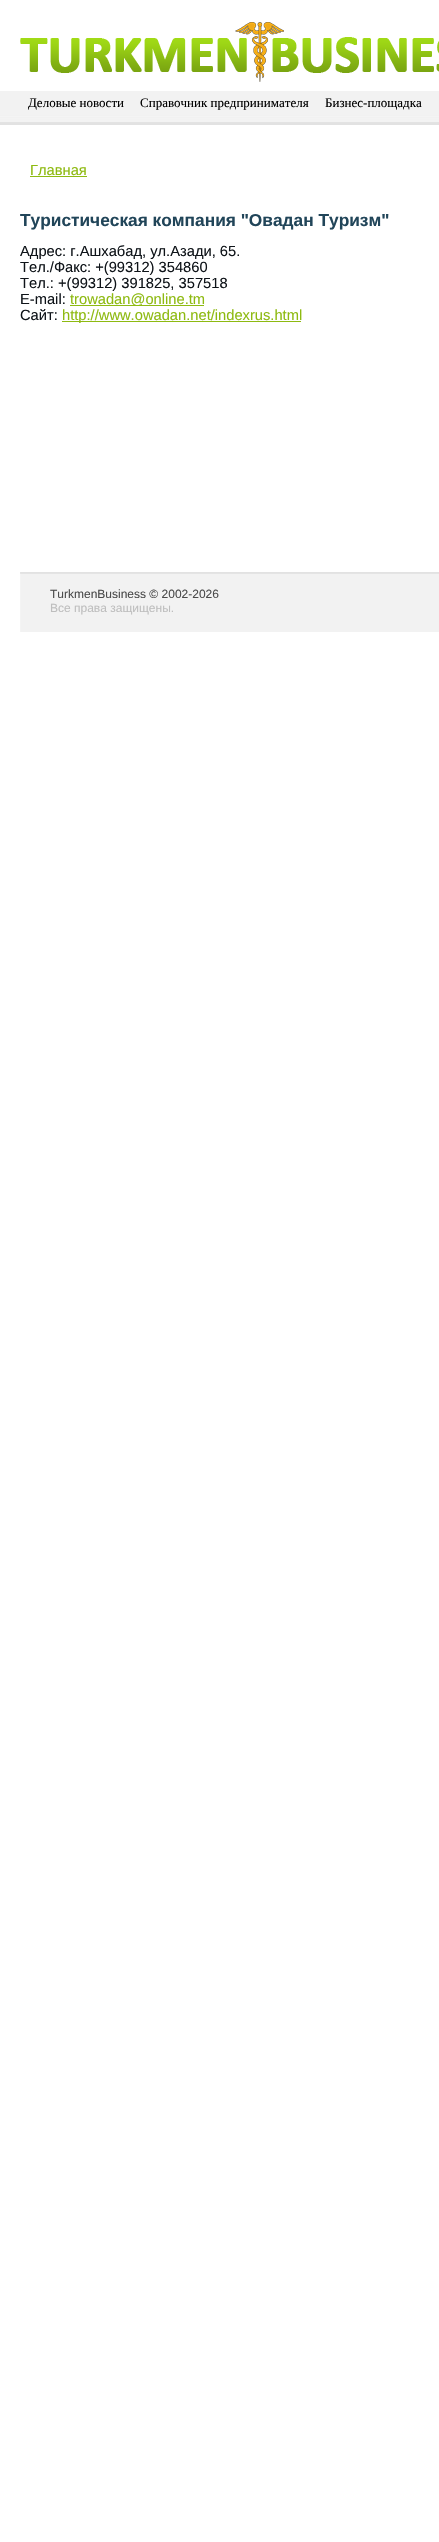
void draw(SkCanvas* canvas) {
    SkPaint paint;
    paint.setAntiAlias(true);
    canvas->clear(0xFFFFFFFF);
    canvas->drawImageRect(SkImages::DeferredFromEncodedData(SkData::MakeFromFileName("img1.png")), SkRect::MakeXYWH(20, 22, 419, 60), SkSamplingOptions());
    canvas->drawImageRect(SkImages::DeferredFromEncodedData(SkData::MakeFromFileName("img2.png")), SkRect::MakeXYWH(0, 91, 439, 34), SkSamplingOptions());
    SkFont font1(fontMgr->matchFamilyStyle("Liberation Serif", SkFontStyle::Normal()), 13);
    font1.setSubpixel(true);
    paint.setColor(0xFF000000);
    canvas->drawString("Деловые новости", 28, 107, font1, paint);
    canvas->drawString("Справочник предпринимателя", 140, 107, font1, paint);
    canvas->drawString("Бизнес-площадка", 325, 107, font1, paint);
    SkFont font2(fontMgr->matchFamilyStyle("Liberation Sans", SkFontStyle::Normal()), 14.7f);
    font2.setSubpixel(true);
    paint.setColor(0xFF8EBA11);
    canvas->drawString("Главная", 30, 175, font2, paint);
    canvas->drawRect(SkRect::MakeXYWH(30, 176, 57, 1), paint);
    SkFont font3(fontMgr->matchFamilyStyle("Liberation Sans", SkFontStyle::Bold()), 17.3f);
    font3.setSubpixel(true);
    paint.setColor(0xFF214559);
    canvas->drawString("Туристическая компания \"Овадан Туризм\"", 20, 226, font3, paint);
    paint.setColor(0xFF0F1419);
    canvas->drawString("Адрес: г.Ашхабад, ул.Азади, 65.", 20, 256, font2, paint);
    canvas->drawString("Тел./Факс: +(99312) 354860", 20, 272, font2, paint);
    canvas->drawString("Тел.: +(99312) 391825, 357518", 20, 288, font2, paint);
    canvas->drawString("E-mail:", 20, 304, font2, paint);
    paint.setColor(0xFF8EBA11);
    canvas->drawRect(SkRect::MakeXYWH(70, 305, 134, 1), paint);
    canvas->drawString("trowadan@online.tm", 70, 304, font2, paint);
    paint.setColor(0xFF0F1419);
    canvas->drawString("Сайт:", 20, 320, font2, paint);
    paint.setColor(0xFF8EBA11);
    canvas->drawRect(SkRect::MakeXYWH(62, 321, 239, 1), paint);
    canvas->drawString("http://www.owadan.net/indexrus.html", 62, 320, font2, paint);
    canvas->drawImageRect(SkImages::DeferredFromEncodedData(SkData::MakeFromFileName("img3.png")), SkRect::MakeXYWH(20, 572, 419, 60), SkSamplingOptions());
    SkFont font4(fontMgr->matchFamilyStyle("Liberation Sans", SkFontStyle::Normal()), 12);
    font4.setSubpixel(true);
    paint.setColor(0xFF4B4B4B);
    canvas->drawString("TurkmenBusiness © 2002-2026", 50, 598, font4, paint);
    paint.setColor(0xFFBEBEBE);
    canvas->drawString("Все права защищены.", 50, 612, font4, paint);
}
